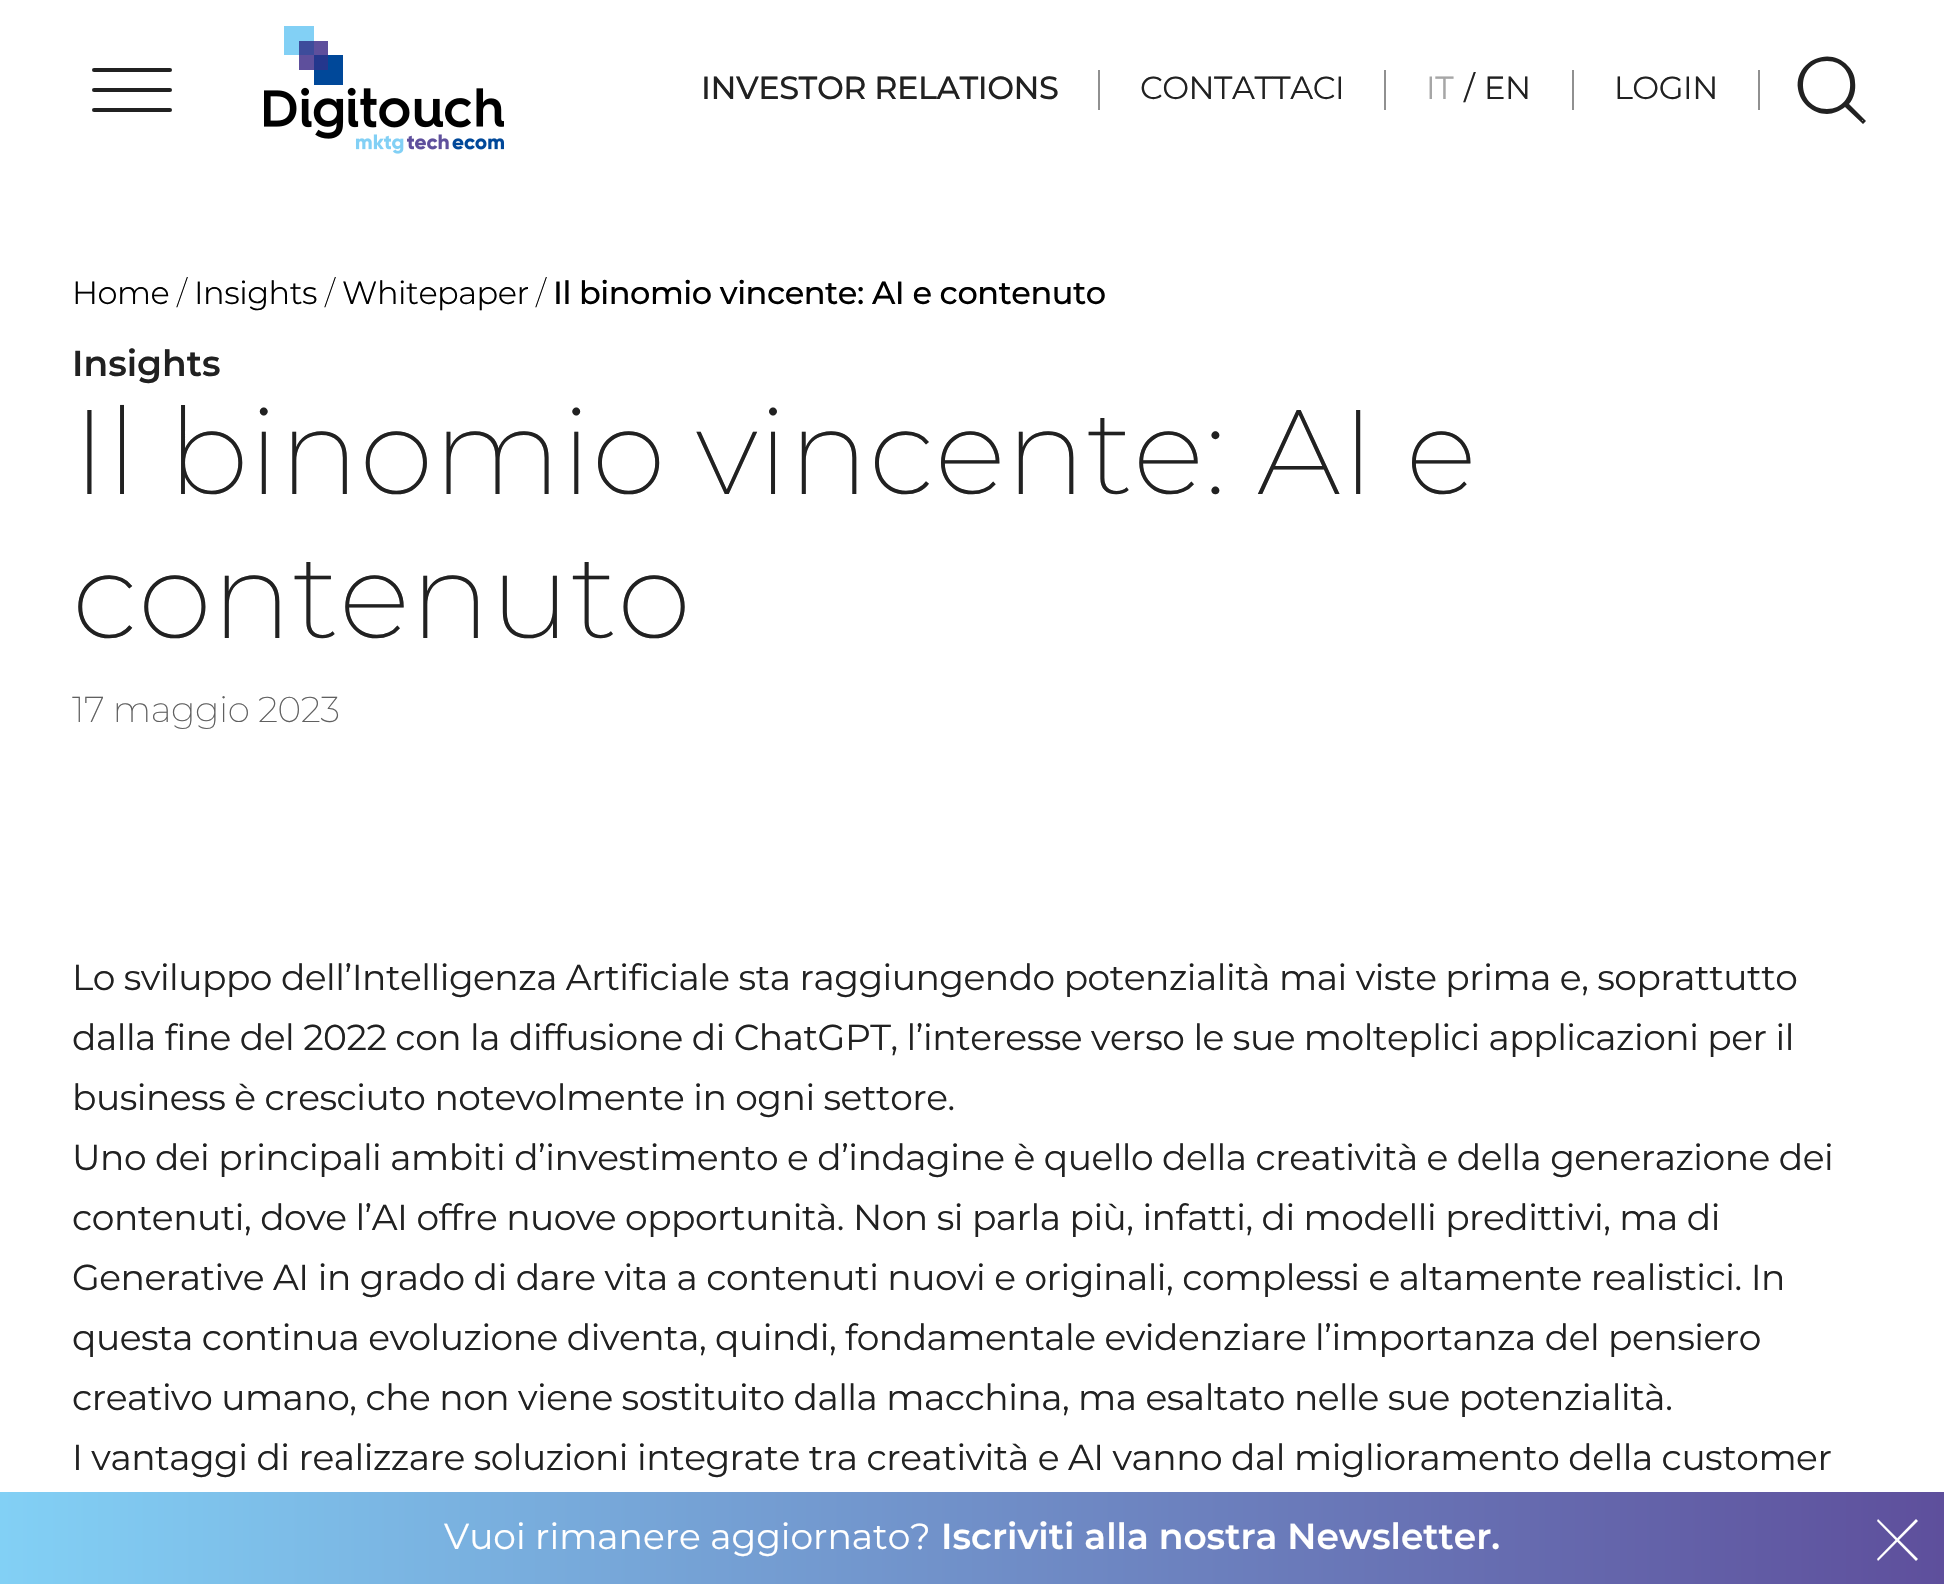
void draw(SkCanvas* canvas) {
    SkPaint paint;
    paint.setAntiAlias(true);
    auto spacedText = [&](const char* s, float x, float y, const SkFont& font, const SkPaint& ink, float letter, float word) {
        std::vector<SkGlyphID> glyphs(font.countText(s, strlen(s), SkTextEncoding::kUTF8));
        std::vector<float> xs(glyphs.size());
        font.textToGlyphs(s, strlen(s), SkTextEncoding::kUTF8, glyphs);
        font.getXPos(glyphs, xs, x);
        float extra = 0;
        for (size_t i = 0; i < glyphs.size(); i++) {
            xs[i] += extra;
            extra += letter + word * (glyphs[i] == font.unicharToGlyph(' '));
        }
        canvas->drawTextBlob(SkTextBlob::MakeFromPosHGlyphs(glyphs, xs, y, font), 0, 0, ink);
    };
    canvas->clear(0xFFFFFFFF);
    paint.setColor(0xFF212121);
    canvas->drawRoundRect(SkRect::MakeXYWH(92, 88, 80, 4), 2, 2, paint);
    canvas->drawRoundRect(SkRect::MakeXYWH(92, 68, 80, 4), 2, 2, paint);
    canvas->drawRoundRect(SkRect::MakeXYWH(92, 108, 80, 4), 2, 2, paint);
    canvas->drawImageRect(SkImages::DeferredFromEncodedData(SkData::MakeFromFileName("img1.png")), SkRect::MakeXYWH(264, 26, 240, 128), SkSamplingOptions());
    paint.setColor(0xFF909090);
    canvas->drawRect(SkRect::MakeXYWH(1098, 70, 2, 40), paint);
    SkFont font1(fontMgr->matchFamilyStyle("Montserrat", SkFontStyle(500, SkFontStyle::kNormal_Width, SkFontStyle::kUpright_Slant)), 32);
    font1.setSubpixel(true);
    paint.setColor(0xFF212121);
    spacedText("INVESTOR RELATIONS", 701, 99, font1, paint, -0.48f, 0);
    paint.setColor(0xFF909090);
    canvas->drawRect(SkRect::MakeXYWH(1384, 70, 2, 40), paint);
    SkFont font2(fontMgr->matchFamilyStyle("Montserrat", SkFontStyle::Normal()), 32);
    font2.setSubpixel(true);
    paint.setColor(0xFF212121);
    spacedText("CONTATTACI", 1140, 99, font2, paint, -0.48f, 0);
    paint.setColor(0xFF909090);
    canvas->drawRect(SkRect::MakeXYWH(1572, 70, 2, 40), paint);
    paint.setColor(0xFFA6A6A6);
    spacedText("IT", 1426, 99, font2, paint, -0.48f, 0);
    paint.setColor(0xFF212121);
    spacedText("/", 1464, 99, font2, paint, -0.48f, 0);
    spacedText("EN", 1484, 99, font2, paint, -0.48f, 0);
    paint.setColor(0xFF909090);
    canvas->drawRect(SkRect::MakeXYWH(1758, 70, 2, 40), paint);
    paint.setColor(0xFF212121);
    spacedText("LOGIN", 1614, 99, font2, paint, -0.48f, 0);
    canvas->drawPath(SkPathBuilder().moveTo(1827, 114).cubicTo(1813, 114, 1800, 103, 1798, 89).cubicTo(1794, 62, 1829, 45, 1848, 66).cubicTo(1852, 70, 1855, 76, 1855, 82).cubicTo(1856, 90, 1854, 98, 1849, 104).lineTo(1866, 121).lineTo(1863, 124).lineTo(1845, 107).cubicTo(1840, 111, 1833, 114, 1827, 114).close().moveTo(1863, 121).lineTo(1863, 120).lineTo(1862, 121).close().moveTo(1827, 61).cubicTo(1795, 61, 1795, 109, 1827, 109).cubicTo(1858, 109, 1858, 61, 1827, 61).close().detach(), paint);
    SkFont font3(fontMgr->matchFamilyStyle("Montserrat", SkFontStyle(300, SkFontStyle::kNormal_Width, SkFontStyle::kUpright_Slant)), 32);
    font3.setSubpixel(true);
    paint.setColor(0xFF000000);
    spacedText("Home", 72, 304, font3, paint, -0.48f, 0);
    SkFont font4(fontMgr->matchFamilyStyle("Montserrat", SkFontStyle(200, SkFontStyle::kNormal_Width, SkFontStyle::kUpright_Slant)), 32);
    font4.setSubpixel(true);
    spacedText("/", 177, 304, font4, paint, -0.48f, 0);
    spacedText("Insights", 194, 304, font3, paint, -0.48f, 0);
    spacedText("/", 325, 304, font4, paint, -0.48f, 0);
    spacedText("Whitepaper", 342, 304, font3, paint, -0.48f, 0);
    spacedText("/", 536, 304, font4, paint, -0.48f, 0);
    spacedText("Il binomio vincente: AI e contenuto", 553, 304, font1, paint, -0.48f, 0);
    SkFont font5(fontMgr->matchFamilyStyle("Montserrat", SkFontStyle(600, SkFontStyle::kNormal_Width, SkFontStyle::kUpright_Slant)), 36);
    font5.setSubpixel(true);
    paint.setColor(0xFF212121);
    canvas->drawString("Insights", 72, 376, font5, paint);
    SkFont font6(fontMgr->matchFamilyStyle("Montserrat", SkFontStyle(200, SkFontStyle::kNormal_Width, SkFontStyle::kUpright_Slant)), 120);
    font6.setSubpixel(true);
    canvas->drawString("Il binomio vincente: AI e", 72, 494, font6, paint);
    canvas->drawString("contenuto", 72, 638, font6, paint);
    SkFont font7(fontMgr->matchFamilyStyle("Montserrat", SkFontStyle(200, SkFontStyle::kNormal_Width, SkFontStyle::kUpright_Slant)), 36);
    font7.setSubpixel(true);
    paint.setColor(0xFF606060);
    spacedText("17 maggio 2023", 72, 722, font7, paint, -0.48f, 0);
    SkFont font8(fontMgr->matchFamilyStyle("Montserrat", SkFontStyle::Normal()), 36);
    font8.setSubpixel(true);
    paint.setColor(0xFF212121);
    spacedText("Lo sviluppo dell’Intelligenza Artificiale sta raggiungendo potenzialità mai viste prima e, soprattutto", 72, 990, font8, paint, -0.48f, 0);
    spacedText("dalla fine del 2022 con la diffusione di ChatGPT, l’interesse verso le sue molteplici applicazioni per il", 72, 1050, font8, paint, -0.48f, 0);
    spacedText("business è cresciuto notevolmente in ogni settore.", 72, 1110, font8, paint, -0.48f, 0);
    spacedText("Uno dei principali ambiti d’investimento e d’indagine è quello della creatività e della generazione dei", 72, 1170, font8, paint, -0.48f, 0);
    spacedText("contenuti, dove l’AI offre nuove opportunità. Non si parla più, infatti, di modelli predittivi, ma di", 72, 1230, font8, paint, -0.48f, 0);
    spacedText("Generative AI in grado di dare vita a contenuti nuovi e originali, complessi e altamente realistici. In", 72, 1290, font8, paint, -0.48f, 0);
    spacedText("questa continua evoluzione diventa, quindi, fondamentale evidenziare l’importanza del pensiero", 72, 1350, font8, paint, -0.48f, 0);
    spacedText("creativo umano, che non viene sostituito dalla macchina, ma esaltato nelle sue potenzialità.", 72, 1410, font8, paint, -0.48f, 0);
    spacedText("I vantaggi di realizzare soluzioni integrate tra creatività e AI vanno dal miglioramento della customer", 72, 1470, font8, paint, -0.48f, 0);
    {
        const SkColor colors[] = {0xFF82D0F5, 0xFF5E4F9C, 0xFF004899};
        const float stops[] = {0, 0.5f, 1};
        const SkPoint ends[] = {{0, 1584}, {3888, 1584}};
        paint.setShader(SkGradientShader::MakeLinear(ends, colors, stops, 3, SkTileMode::kClamp));
        paint.setAlpha(255);
    }
    canvas->drawRect(SkRect::MakeXYWH(0, 1492, 1944, 92), paint);
    paint.setShader(nullptr);
    paint.setColor(0xFFFFFFFF);
    canvas->drawString("Vuoi rimanere aggiornato?", 444, 1549, font8, paint);
    canvas->drawString("Iscriviti alla nostra Newsletter.", 941, 1549, font5, paint);
    canvas->drawPath(SkPathBuilder().moveTo(1916, 1519).lineTo(1918, 1521).lineTo(1878, 1561).lineTo(1877, 1559).close().detach(), paint);
    canvas->drawPath(SkPathBuilder().moveTo(1877, 1521).lineTo(1878, 1519).lineTo(1918, 1559).lineTo(1916, 1561).close().detach(), paint);
}
